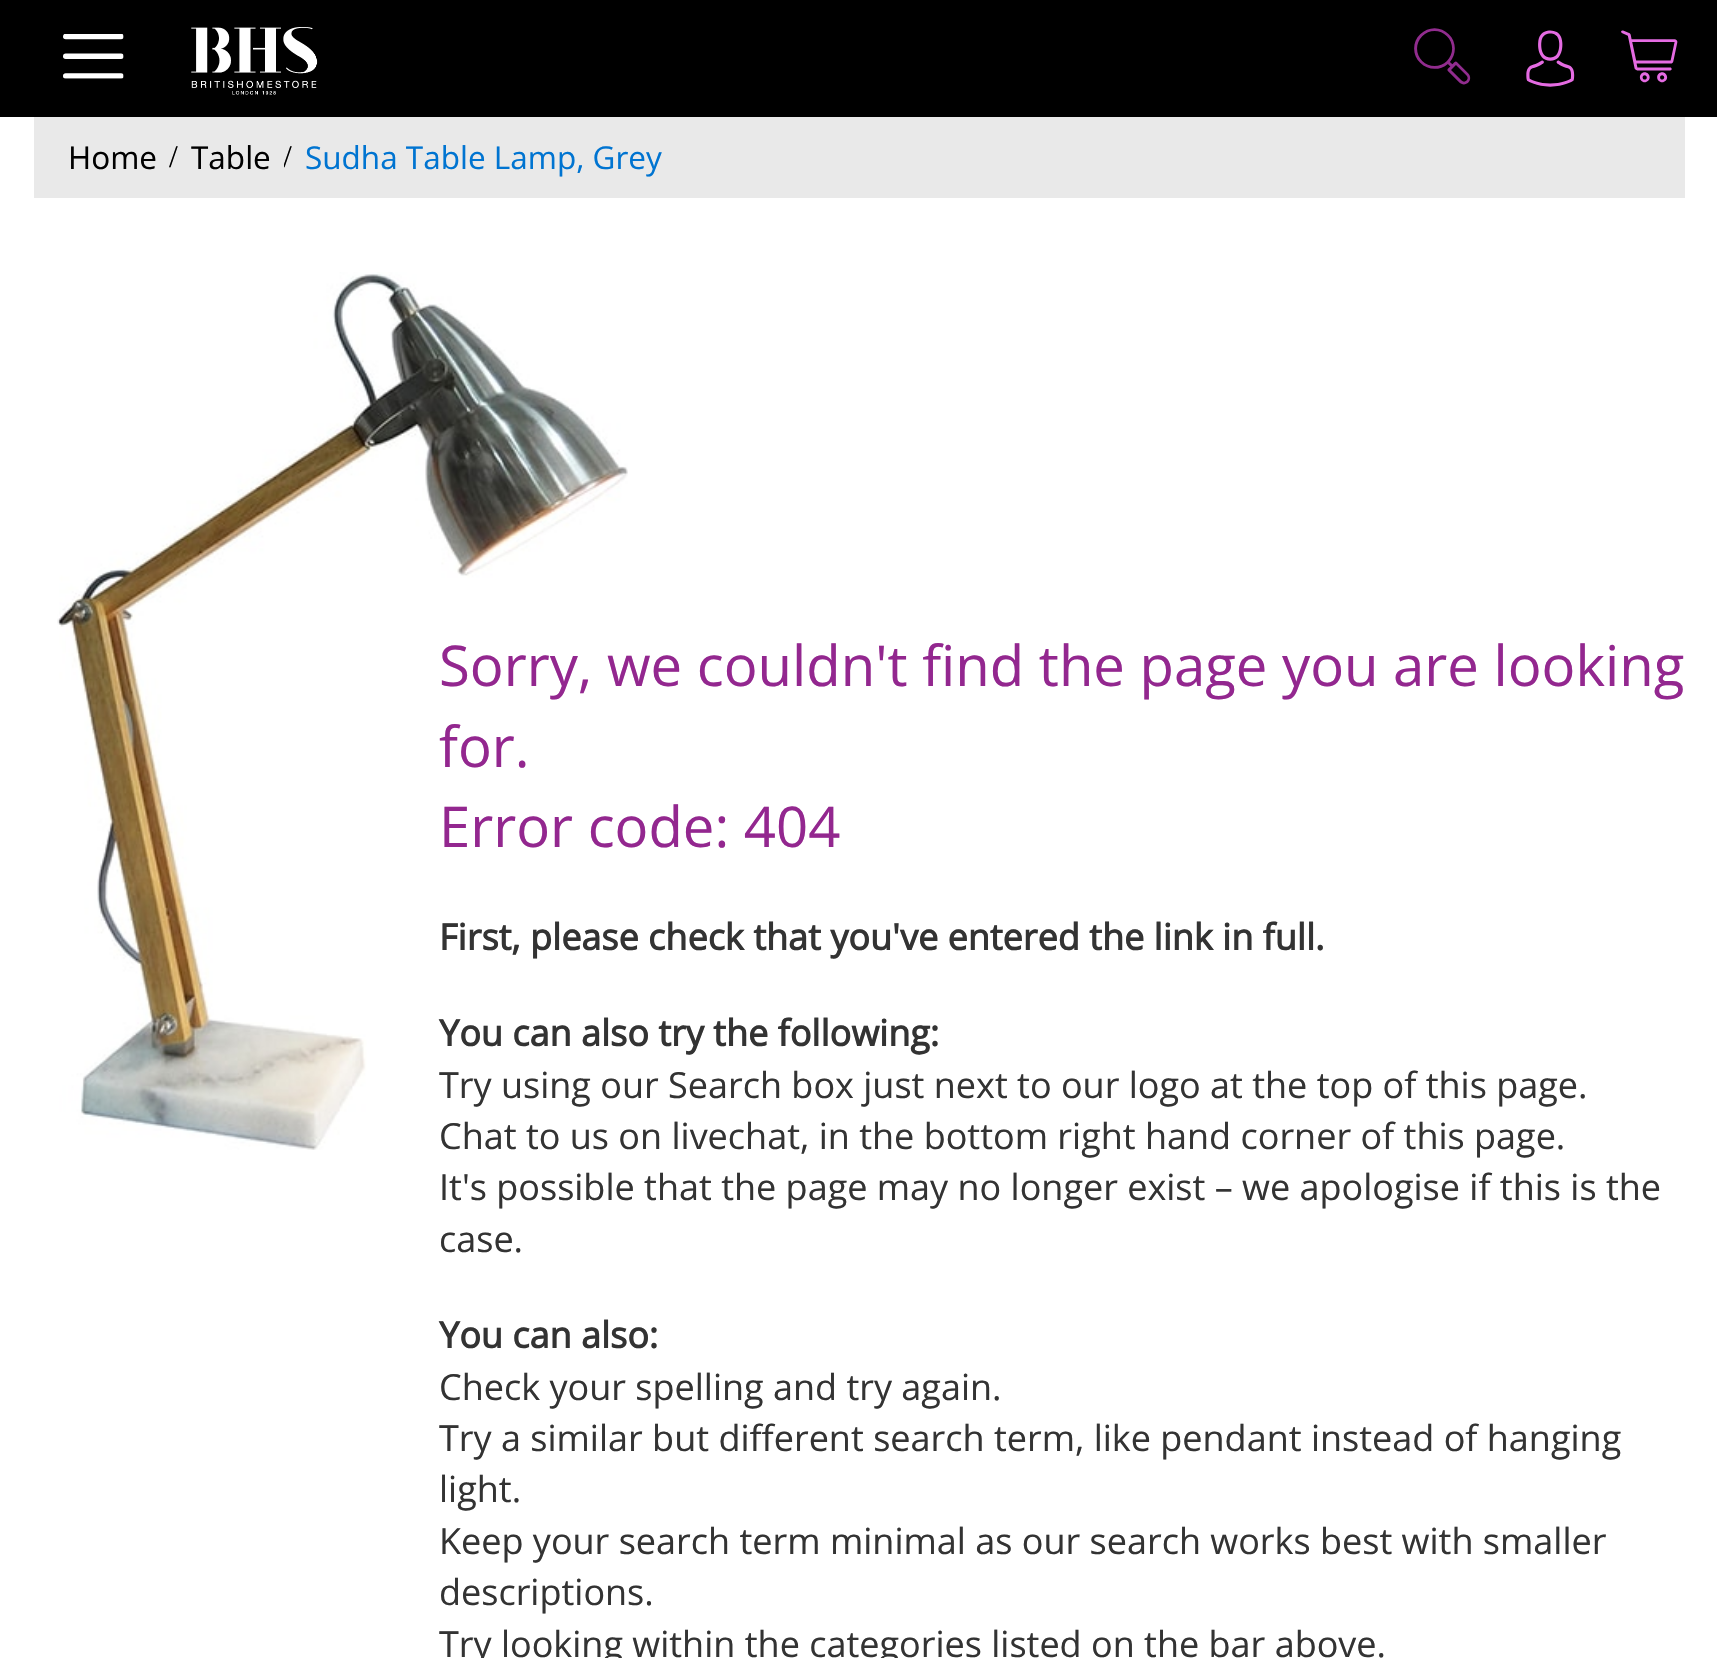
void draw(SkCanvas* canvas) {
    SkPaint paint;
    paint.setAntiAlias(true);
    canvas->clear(0xFFFFFFFF);
    paint.setColor(0xFF000000);
    canvas->drawRect(SkRect::MakeXYWH(0, 0, 1717, 117), paint);
    canvas->drawImageRect(SkImages::DeferredFromEncodedData(SkData::MakeFromFileName("img1.png")), SkRect::MakeXYWH(63, 34, 61, 45), SkSamplingOptions());
    canvas->drawImageRect(SkImages::DeferredFromEncodedData(SkData::MakeFromFileName("img2.png")), SkRect::MakeXYWH(191, 27, 127, 68), SkSamplingOptions());
    canvas->drawImageRect(SkImages::DeferredFromEncodedData(SkData::MakeFromFileName("img3.png")), SkRect::MakeXYWH(1414, 28, 57, 57), SkSamplingOptions());
    canvas->drawImageRect(SkImages::DeferredFromEncodedData(SkData::MakeFromFileName("img4.png")), SkRect::MakeXYWH(1526, 30, 49, 57), SkSamplingOptions());
    canvas->drawImageRect(SkImages::DeferredFromEncodedData(SkData::MakeFromFileName("img5.png")), SkRect::MakeXYWH(1621, 30, 57, 53), SkSamplingOptions());
    paint.setColor(0xFFE9E9E9);
    canvas->drawRect(SkRect::MakeXYWH(34, 117, 1651, 81), paint);
    SkFont font1(fontMgr->matchFamilyStyle("Open Sans", SkFontStyle::Normal()), 31.5f);
    font1.setSubpixel(true);
    paint.setColor(0xFF000000);
    canvas->drawString("Home", 68, 169, font1, paint);
    SkFont font2(fontMgr->matchFamilyStyle("Liberation Serif", SkFontStyle::Normal()), 31.5f);
    font2.setSubpixel(true);
    canvas->drawString("/", 169, 167, font2, paint);
    canvas->drawString("Table", 191, 169, font1, paint);
    canvas->save();
    canvas->clipRect(SkRect::MakeXYWH(284, 135, 9, 41));
    canvas->drawString("/", 283, 167, font2, paint);
    canvas->restore();
    paint.setColor(0xFF0074D1);
    canvas->drawString("Sudha Table Lamp, Grey", 305, 169, font1, paint);
    canvas->drawImageRect(SkImages::DeferredFromEncodedData(SkData::MakeFromFileName("img6.png")), SkRect::MakeXYWH(57, 272, 571, 878), SkSamplingOptions());
    SkFont font3(fontMgr->matchFamilyStyle("Open Sans", SkFontStyle::Normal()), 56.25f);
    font3.setSubpixel(true);
    paint.setColor(0xFF93278F);
    canvas->drawString("Sorry, we couldn't find the page you are looking", 439, 686, font3, paint);
    canvas->drawString("for.", 439, 767, font3, paint);
    canvas->drawString("Error code: 404", 439, 847, font3, paint);
    SkFont font4(fontMgr->matchFamilyStyle("Open Sans", SkFontStyle::Bold()), 36);
    font4.setSubpixel(true);
    paint.setColor(0xFF333333);
    canvas->drawString("First, please check that you've entered the link in full.", 439, 950, font4, paint);
    canvas->drawString("You can also try the following:", 439, 1046, font4, paint);
    SkFont font5(fontMgr->matchFamilyStyle("Open Sans", SkFontStyle::Normal()), 36);
    font5.setSubpixel(true);
    canvas->drawString("Try using our Search box just next to our logo at the top of this page.", 439, 1098, font5, paint);
    canvas->drawString("Chat to us on livechat, in the bottom right hand corner of this page.", 439, 1149, font5, paint);
    canvas->drawString("It's possible that the page may no longer exist – we apologise if this is the", 439, 1200, font5, paint);
    canvas->drawString("case.", 439, 1252, font5, paint);
    canvas->drawString("You can also:", 439, 1348, font4, paint);
    canvas->drawString("Check your spelling and try again.", 439, 1400, font5, paint);
    canvas->drawString("Try a similar but different search term, like pendant instead of hanging", 439, 1451, font5, paint);
    canvas->drawString("light.", 439, 1502, font5, paint);
    canvas->drawString("Keep your search term minimal as our search works best with smaller", 439, 1554, font5, paint);
    canvas->drawString("descriptions.", 439, 1605, font5, paint);
    canvas->drawString("Try looking within the categories listed on the bar above.", 439, 1657, font5, paint);
}
